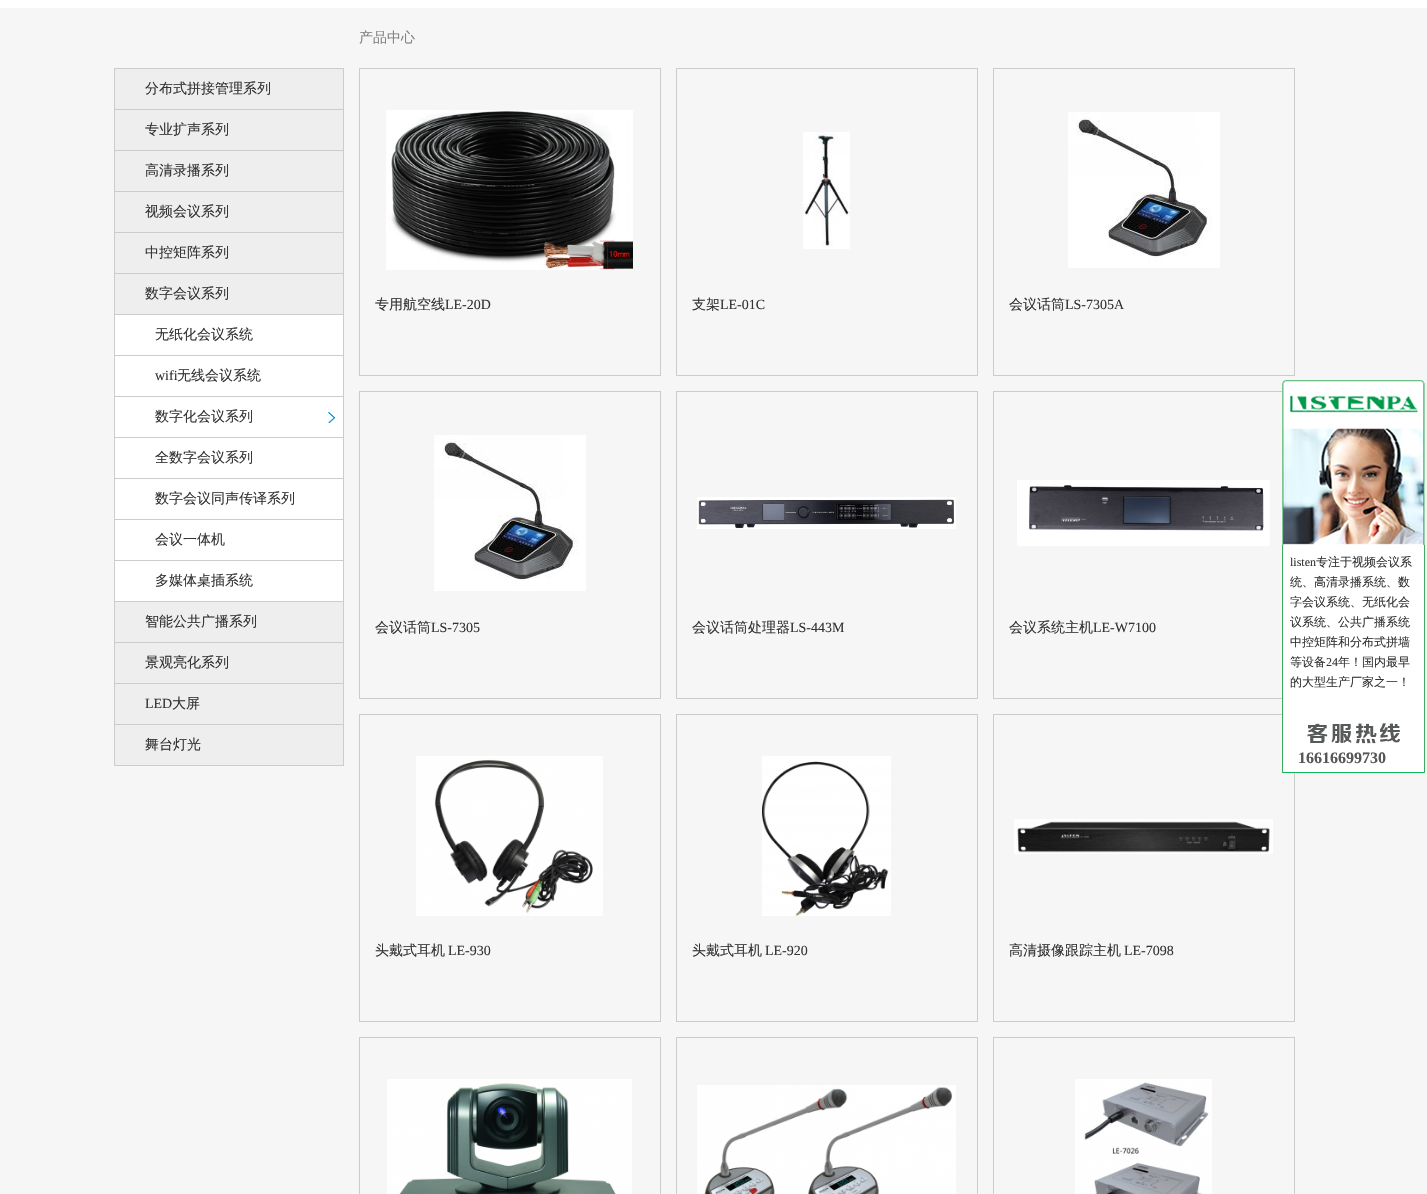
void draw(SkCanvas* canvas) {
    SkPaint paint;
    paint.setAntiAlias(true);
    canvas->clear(0xFFF6F6F6);
    paint.setColor(0xFFFFFFFF);
    canvas->drawRect(SkRect::MakeXYWH(0, 0, 1427, 8), paint);
    paint.setColor(0xFFEEEEEE);
    canvas->drawRect(SkRect::MakeXYWH(114.5f, 68.5f, 229, 697), paint);
    paint.setStyle(SkPaint::kStroke_Style);
    paint.setStrokeWidth(1);
    paint.setColor(0xFFCCCCCC);
    canvas->drawRect(SkRect::MakeXYWH(114.5f, 68.5f, 229, 697), paint);
    paint.setStyle(SkPaint::kFill_Style);
    canvas->drawRect(SkRect::MakeXYWH(115, 109, 228, 1), paint);
    SkFont font1(fontMgr->matchFamilyStyle("WenQuanYi Zen Hei", SkFontStyle(500, SkFontStyle::kNormal_Width, SkFontStyle::kUpright_Slant)), 14);
    font1.setSubpixel(true);
    paint.setColor(0xFF333333);
    canvas->drawString("分布式拼接管理系列", 145, 93, font1, paint);
    paint.setColor(0xFFCCCCCC);
    canvas->drawRect(SkRect::MakeXYWH(115, 150, 228, 1), paint);
    paint.setColor(0xFF333333);
    canvas->drawString("专业扩声系列", 145, 134, font1, paint);
    paint.setColor(0xFFCCCCCC);
    canvas->drawRect(SkRect::MakeXYWH(115, 191, 228, 1), paint);
    paint.setColor(0xFF333333);
    canvas->drawString("高清录播系列", 145, 175, font1, paint);
    paint.setColor(0xFFCCCCCC);
    canvas->drawRect(SkRect::MakeXYWH(115, 232, 228, 1), paint);
    paint.setColor(0xFF333333);
    canvas->drawString("视频会议系列", 145, 216, font1, paint);
    paint.setColor(0xFFCCCCCC);
    canvas->drawRect(SkRect::MakeXYWH(115, 273, 228, 1), paint);
    paint.setColor(0xFF333333);
    canvas->drawString("中控矩阵系列", 145, 257, font1, paint);
    paint.setColor(0xFFCCCCCC);
    canvas->drawRect(SkRect::MakeXYWH(115, 601, 228, 1), paint);
    paint.setColor(0xFF333333);
    canvas->drawString("数字会议系列", 145, 298, font1, paint);
    paint.setColor(0xFFFFFFFF);
    canvas->drawRect(SkRect::MakeXYWH(115, 315, 228, 286), paint);
    paint.setColor(0xFFCCCCCC);
    canvas->drawRect(SkRect::MakeXYWH(115, 314, 228, 1), paint);
    paint.setColor(0xFF333333);
    canvas->drawString("无纸化会议系统", 155, 339, font1, paint);
    paint.setColor(0xFFCCCCCC);
    canvas->drawRect(SkRect::MakeXYWH(115, 355, 228, 1), paint);
    SkFont font2(fontMgr->matchFamilyStyle("Liberation Serif", SkFontStyle::Normal()), 14);
    font2.setSubpixel(true);
    paint.setColor(0xFF333333);
    canvas->drawString("wifi", 155, 380, font2, paint);
    canvas->drawString("无线会议系统", 177, 380, font1, paint);
    paint.setColor(0xFFCCCCCC);
    canvas->drawRect(SkRect::MakeXYWH(115, 396, 228, 1), paint);
    canvas->drawImageRect(SkImages::DeferredFromEncodedData(SkData::MakeFromFileName("img1.png")), SkRect::MakeXYWH(328, 412, 7, 11), SkSamplingOptions());
    paint.setColor(0xFF333333);
    canvas->drawString("数字化会议系列", 155, 421, font1, paint);
    paint.setColor(0xFFCCCCCC);
    canvas->drawRect(SkRect::MakeXYWH(115, 437, 228, 1), paint);
    paint.setColor(0xFF333333);
    canvas->drawString("全数字会议系列", 155, 462, font1, paint);
    paint.setColor(0xFFCCCCCC);
    canvas->drawRect(SkRect::MakeXYWH(115, 478, 228, 1), paint);
    paint.setColor(0xFF333333);
    canvas->drawString("数字会议同声传译系列", 155, 503, font1, paint);
    paint.setColor(0xFFCCCCCC);
    canvas->drawRect(SkRect::MakeXYWH(115, 519, 228, 1), paint);
    paint.setColor(0xFF333333);
    canvas->drawString("会议一体机", 155, 544, font1, paint);
    paint.setColor(0xFFCCCCCC);
    canvas->drawRect(SkRect::MakeXYWH(115, 560, 228, 1), paint);
    paint.setColor(0xFF333333);
    canvas->drawString("多媒体桌插系统", 155, 585, font1, paint);
    paint.setColor(0xFFCCCCCC);
    canvas->drawRect(SkRect::MakeXYWH(115, 642, 228, 1), paint);
    paint.setColor(0xFF333333);
    canvas->drawString("智能公共广播系列", 145, 626, font1, paint);
    paint.setColor(0xFFCCCCCC);
    canvas->drawRect(SkRect::MakeXYWH(115, 683, 228, 1), paint);
    paint.setColor(0xFF333333);
    canvas->drawString("景观亮化系列", 145, 667, font1, paint);
    paint.setColor(0xFFCCCCCC);
    canvas->drawRect(SkRect::MakeXYWH(115, 724, 228, 1), paint);
    paint.setColor(0xFF333333);
    canvas->drawString("LED", 145, 708, font2, paint);
    canvas->drawString("大屏", 172, 708, font1, paint);
    canvas->drawString("舞台灯光", 145, 749, font1, paint);
    paint.setColor(0xFF808080);
    canvas->drawString("产品中心", 359, 42, font1, paint);
    paint.setStyle(SkPaint::kStroke_Style);
    paint.setColor(0xFFCCCCCC);
    canvas->drawRect(SkRect::MakeXYWH(359.5f, 68.5f, 301, 307), paint);
    canvas->drawImageRect(SkImages::DeferredFromEncodedData(SkData::MakeFromFileName("img2.png")), SkRect::MakeXYWH(386, 110, 247, 160), SkSamplingOptions());
    paint.setStyle(SkPaint::kFill_Style);
    paint.setColor(0xFF333333);
    canvas->drawString("专用航空线", 375, 309, font1, paint);
    canvas->drawString("LE-20D", 445, 309, font2, paint);
    paint.setStyle(SkPaint::kStroke_Style);
    paint.setColor(0xFFCCCCCC);
    canvas->drawRect(SkRect::MakeXYWH(676.5f, 68.5f, 301, 307), paint);
    canvas->drawImageRect(SkImages::DeferredFromEncodedData(SkData::MakeFromFileName("img3.png")), SkRect::MakeXYWH(803, 132, 47, 117), SkSamplingOptions());
    paint.setStyle(SkPaint::kFill_Style);
    paint.setColor(0xFF333333);
    canvas->drawString("支架", 692, 309, font1, paint);
    canvas->drawString("LE-01C", 720, 309, font2, paint);
    paint.setStyle(SkPaint::kStroke_Style);
    paint.setColor(0xFFCCCCCC);
    canvas->drawRect(SkRect::MakeXYWH(993.5f, 68.5f, 301, 307), paint);
    canvas->drawImageRect(SkImages::DeferredFromEncodedData(SkData::MakeFromFileName("img4.png")), SkRect::MakeXYWH(1068, 112, 152, 156), SkSamplingOptions());
    paint.setStyle(SkPaint::kFill_Style);
    paint.setColor(0xFF333333);
    canvas->drawString("会议话筒", 1009, 309, font1, paint);
    canvas->drawString("LS-7305A", 1065, 309, font2, paint);
    paint.setStyle(SkPaint::kStroke_Style);
    paint.setColor(0xFFCCCCCC);
    canvas->drawRect(SkRect::MakeXYWH(359.5f, 391.5f, 301, 307), paint);
    canvas->drawImageRect(SkImages::DeferredFromEncodedData(SkData::MakeFromFileName("img4.png")), SkRect::MakeXYWH(434, 435, 152, 156), SkSamplingOptions());
    paint.setStyle(SkPaint::kFill_Style);
    paint.setColor(0xFF333333);
    canvas->drawString("会议话筒", 375, 632, font1, paint);
    canvas->drawString("LS-7305", 431, 632, font2, paint);
    paint.setStyle(SkPaint::kStroke_Style);
    paint.setColor(0xFFCCCCCC);
    canvas->drawRect(SkRect::MakeXYWH(676.5f, 391.5f, 301, 307), paint);
    canvas->drawImageRect(SkImages::DeferredFromEncodedData(SkData::MakeFromFileName("img5.png")), SkRect::MakeXYWH(697, 497, 259, 32), SkSamplingOptions());
    paint.setStyle(SkPaint::kFill_Style);
    paint.setColor(0xFF333333);
    canvas->drawString("会议话筒处理器", 692, 632, font1, paint);
    canvas->drawString("LS-443M", 790, 632, font2, paint);
    paint.setStyle(SkPaint::kStroke_Style);
    paint.setColor(0xFFCCCCCC);
    canvas->drawRect(SkRect::MakeXYWH(993.5f, 391.5f, 301, 307), paint);
    canvas->drawImageRect(SkImages::DeferredFromEncodedData(SkData::MakeFromFileName("img6.png")), SkRect::MakeXYWH(1017, 480, 253, 66), SkSamplingOptions());
    paint.setStyle(SkPaint::kFill_Style);
    paint.setColor(0xFF333333);
    canvas->drawString("会议系统主机", 1009, 632, font1, paint);
    canvas->drawString("LE-W7100", 1093, 632, font2, paint);
    paint.setStyle(SkPaint::kStroke_Style);
    paint.setColor(0xFFCCCCCC);
    canvas->drawRect(SkRect::MakeXYWH(359.5f, 714.5f, 301, 307), paint);
    canvas->drawImageRect(SkImages::DeferredFromEncodedData(SkData::MakeFromFileName("img7.png")), SkRect::MakeXYWH(416, 756, 187, 160), SkSamplingOptions());
    paint.setStyle(SkPaint::kFill_Style);
    paint.setColor(0xFF333333);
    canvas->drawString("头戴式耳机", 375, 955, font1, paint);
    canvas->drawString("LE-930", 448, 955, font2, paint);
    paint.setStyle(SkPaint::kStroke_Style);
    paint.setColor(0xFFCCCCCC);
    canvas->drawRect(SkRect::MakeXYWH(676.5f, 714.5f, 301, 307), paint);
    canvas->drawImageRect(SkImages::DeferredFromEncodedData(SkData::MakeFromFileName("img8.png")), SkRect::MakeXYWH(762, 756, 129, 160), SkSamplingOptions());
    paint.setStyle(SkPaint::kFill_Style);
    paint.setColor(0xFF333333);
    canvas->drawString("头戴式耳机", 692, 955, font1, paint);
    canvas->drawString("LE-920", 765, 955, font2, paint);
    paint.setStyle(SkPaint::kStroke_Style);
    paint.setColor(0xFFCCCCCC);
    canvas->drawRect(SkRect::MakeXYWH(993.5f, 714.5f, 301, 307), paint);
    canvas->drawImageRect(SkImages::DeferredFromEncodedData(SkData::MakeFromFileName("img9.png")), SkRect::MakeXYWH(1014, 819, 259, 35), SkSamplingOptions());
    paint.setStyle(SkPaint::kFill_Style);
    paint.setColor(0xFF333333);
    canvas->drawString("高清摄像跟踪主机", 1009, 955, font1, paint);
    canvas->drawString("LE-7098", 1124, 955, font2, paint);
    paint.setStyle(SkPaint::kStroke_Style);
    paint.setColor(0xFFCCCCCC);
    canvas->drawRect(SkRect::MakeXYWH(359.5f, 1037.5f, 301, 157), paint);
    canvas->drawImageRect(SkImages::DeferredFromEncodedData(SkData::MakeFromFileName("img10.png")), SkRect::MakeXYWH(387, 1079, 245, 115), SkSamplingOptions());
    canvas->drawRect(SkRect::MakeXYWH(676.5f, 1037.5f, 301, 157), paint);
    canvas->drawImageRect(SkImages::DeferredFromEncodedData(SkData::MakeFromFileName("img11.png")), SkRect::MakeXYWH(697, 1085, 259, 109), SkSamplingOptions());
    canvas->drawRect(SkRect::MakeXYWH(993.5f, 1037.5f, 301, 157), paint);
    canvas->drawImageRect(SkImages::DeferredFromEncodedData(SkData::MakeFromFileName("img12.png")), SkRect::MakeXYWH(1075, 1079, 137, 115), SkSamplingOptions());
    canvas->drawImageRect(SkImages::DeferredFromEncodedData(SkData::MakeFromFileName("img13.png")), SkRect::MakeXYWH(1282, 380, 143, 165), SkSamplingOptions());
    paint.setStyle(SkPaint::kFill_Style);
    paint.setColor(0xFFFFFFFF);
    canvas->drawRect(SkRect::MakeXYWH(1283, 545, 141, 175), paint);
    paint.setColor(0xFF3DAA5D);
    canvas->drawRect(SkRect::MakeXYWH(1424, 545, 1, 175), paint);
    canvas->drawRect(SkRect::MakeXYWH(1282, 545, 1, 175), paint);
    SkFont font3(fontMgr->matchFamilyStyle("Liberation Serif", SkFontStyle::Normal()), 12);
    font3.setSubpixel(true);
    paint.setColor(0xFF333333);
    canvas->drawString("listen", 1290, 566, font3, paint);
    SkFont font4(fontMgr->matchFamilyStyle("WenQuanYi Zen Hei", SkFontStyle(500, SkFontStyle::kNormal_Width, SkFontStyle::kUpright_Slant)), 12);
    font4.setSubpixel(true);
    canvas->drawString("专注于视频会议系", 1316, 566, font4, paint);
    canvas->drawString("统、高清录播系统、数", 1290, 586, font4, paint);
    canvas->drawString("字会议系统、无纸化会", 1290, 606, font4, paint);
    canvas->drawString("议系统、公共广播系统", 1290, 626, font4, paint);
    canvas->drawString("中控矩阵和分布式拼墙", 1290, 646, font4, paint);
    canvas->drawString("等设备", 1290, 666, font4, paint);
    canvas->drawString("24", 1326, 666, font3, paint);
    canvas->drawString("年！国内最早", 1338, 666, font4, paint);
    canvas->drawString("的大型生产厂家之一！", 1290, 686, font4, paint);
    canvas->drawImageRect(SkImages::DeferredFromEncodedData(SkData::MakeFromFileName("img14.png")), SkRect::MakeXYWH(1282, 720, 143, 53), SkSamplingOptions());
    SkFont font5(fontMgr->matchFamilyStyle("Liberation Serif", SkFontStyle::Bold()), 16);
    font5.setSubpixel(true);
    paint.setColor(0xFF555555);
    canvas->drawString("16616699730", 1298, 763, font5, paint);
}
